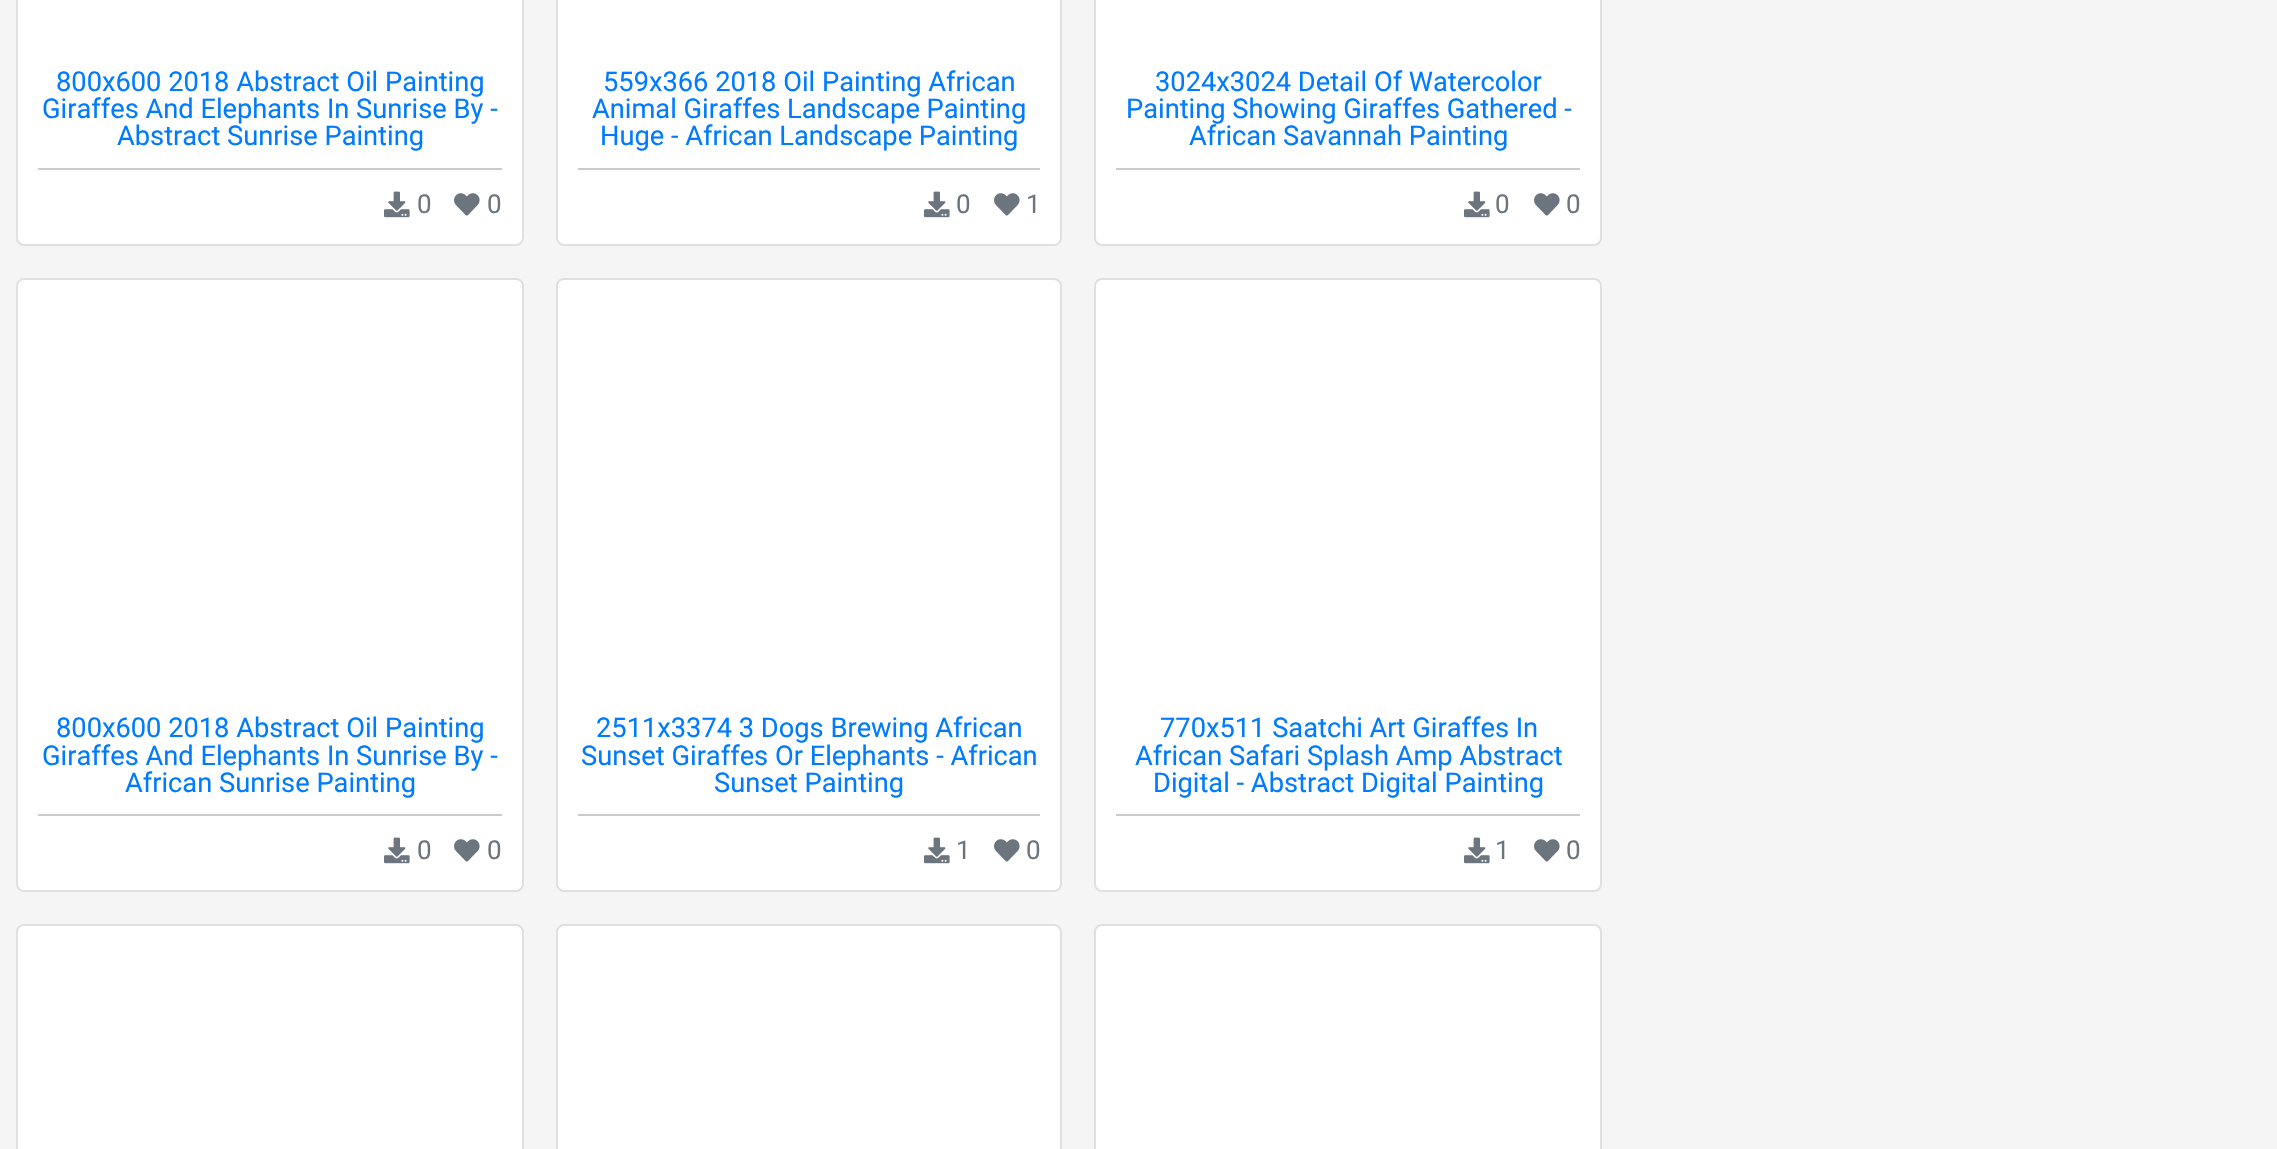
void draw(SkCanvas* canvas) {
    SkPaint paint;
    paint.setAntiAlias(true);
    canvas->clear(0xFFF5F5F5);
    paint.setColor(0xFFFFFFFF);
    canvas->drawRoundRect(SkRect::MakeXYWH(16, -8, 508, 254), 8, 8, paint);
    paint.setStyle(SkPaint::kStroke_Style);
    paint.setStrokeWidth(2);
    paint.setColor(0x1F000000);
    canvas->drawRoundRect(SkRect::MakeXYWH(17, -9, 506, 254), 7, 7, paint);
    paint.setStyle(SkPaint::kFill_Style);
    paint.setColor(0xFFCCCCCC);
    canvas->drawRect(SkRect::MakeXYWH(38, 168, 464, 2), paint);
    SkFont font1(fontMgr->matchFamilyStyle("Roboto", SkFontStyle::Normal()), 27.25f);
    font1.setSubpixel(true);
    paint.setColor(0xFF007BFF);
    canvas->drawString("800x600 2018 Abstract Oil Painting", 56, 91, font1, paint);
    canvas->drawString("Giraffes And Elephants In Sunrise By -", 42, 118, font1, paint);
    canvas->drawString("Abstract Sunrise Painting", 117, 145, font1, paint);
    canvas->drawImageRect(SkImages::DeferredFromEncodedData(SkData::MakeFromFileName("img1.png")), SkRect::MakeXYWH(384, 191, 26, 27), SkSamplingOptions());
    SkFont font2(fontMgr->matchFamilyStyle("Roboto", SkFontStyle::Normal()), 26);
    font2.setSubpixel(true);
    paint.setColor(0xFF6C757D);
    canvas->drawString("0", 417, 213, font2, paint);
    canvas->drawImageRect(SkImages::DeferredFromEncodedData(SkData::MakeFromFileName("img2.png")), SkRect::MakeXYWH(454, 193, 26, 23), SkSamplingOptions());
    canvas->drawString("0", 487, 213, font2, paint);
    paint.setColor(0xFFFFFFFF);
    canvas->drawRoundRect(SkRect::MakeXYWH(556, -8, 506, 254), 8, 8, paint);
    paint.setStyle(SkPaint::kStroke_Style);
    paint.setColor(0x1F000000);
    canvas->drawRoundRect(SkRect::MakeXYWH(557, -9, 504, 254), 7, 7, paint);
    paint.setStyle(SkPaint::kFill_Style);
    paint.setColor(0xFFCCCCCC);
    canvas->drawRect(SkRect::MakeXYWH(578, 168, 462, 2), paint);
    paint.setColor(0xFF007BFF);
    canvas->drawString("559x366 2018 Oil Painting African", 603, 91, font1, paint);
    canvas->drawString("Animal Giraffes Landscape Painting", 592, 118, font1, paint);
    canvas->drawString("Huge - African Landscape Painting", 600, 145, font1, paint);
    canvas->drawImageRect(SkImages::DeferredFromEncodedData(SkData::MakeFromFileName("img1.png")), SkRect::MakeXYWH(924, 191, 26, 27), SkSamplingOptions());
    paint.setColor(0xFF6C757D);
    canvas->drawString("0", 956, 213, font2, paint);
    canvas->drawImageRect(SkImages::DeferredFromEncodedData(SkData::MakeFromFileName("img2.png")), SkRect::MakeXYWH(994, 193, 26, 23), SkSamplingOptions());
    canvas->drawString("1", 1026, 213, font2, paint);
    paint.setColor(0xFFFFFFFF);
    canvas->drawRoundRect(SkRect::MakeXYWH(1094, -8, 508, 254), 8, 8, paint);
    paint.setStyle(SkPaint::kStroke_Style);
    paint.setColor(0x1F000000);
    canvas->drawRoundRect(SkRect::MakeXYWH(1095, -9, 506, 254), 7, 7, paint);
    paint.setStyle(SkPaint::kFill_Style);
    paint.setColor(0xFFCCCCCC);
    canvas->drawRect(SkRect::MakeXYWH(1116, 168, 464, 2), paint);
    paint.setColor(0xFF007BFF);
    canvas->drawString("3024x3024 Detail Of Watercolor", 1155, 91, font1, paint);
    canvas->drawString("Painting Showing Giraffes Gathered -", 1126, 118, font1, paint);
    canvas->drawString("African Savannah Painting", 1189, 145, font1, paint);
    canvas->drawImageRect(SkImages::DeferredFromEncodedData(SkData::MakeFromFileName("img1.png")), SkRect::MakeXYWH(1464, 191, 26, 27), SkSamplingOptions());
    paint.setColor(0xFF6C757D);
    canvas->drawString("0", 1495, 213, font2, paint);
    canvas->drawImageRect(SkImages::DeferredFromEncodedData(SkData::MakeFromFileName("img2.png")), SkRect::MakeXYWH(1534, 193, 26, 23), SkSamplingOptions());
    canvas->drawString("0", 1566, 213, font2, paint);
    paint.setColor(0xFFFFFFFF);
    canvas->drawRoundRect(SkRect::MakeXYWH(16, 278, 508, 614), 8, 8, paint);
    paint.setStyle(SkPaint::kStroke_Style);
    paint.setColor(0x1F000000);
    canvas->drawRoundRect(SkRect::MakeXYWH(17, 279, 506, 612), 7, 7, paint);
    paint.setStyle(SkPaint::kFill_Style);
    paint.setColor(0xFFCCCCCC);
    canvas->drawRect(SkRect::MakeXYWH(38, 814, 464, 2), paint);
    paint.setColor(0xFF007BFF);
    canvas->drawString("800x600 2018 Abstract Oil Painting", 56, 737, font1, paint);
    canvas->drawString("Giraffes And Elephants In Sunrise By -", 42, 765, font1, paint);
    canvas->drawString("African Sunrise Painting", 125, 792, font1, paint);
    canvas->drawImageRect(SkImages::DeferredFromEncodedData(SkData::MakeFromFileName("img1.png")), SkRect::MakeXYWH(384, 837, 26, 27), SkSamplingOptions());
    paint.setColor(0xFF6C757D);
    canvas->drawString("0", 417, 859, font2, paint);
    canvas->drawImageRect(SkImages::DeferredFromEncodedData(SkData::MakeFromFileName("img2.png")), SkRect::MakeXYWH(454, 839, 26, 23), SkSamplingOptions());
    canvas->drawString("0", 487, 859, font2, paint);
    paint.setColor(0xFFFFFFFF);
    canvas->drawRoundRect(SkRect::MakeXYWH(556, 278, 506, 614), 8, 8, paint);
    paint.setStyle(SkPaint::kStroke_Style);
    paint.setColor(0x1F000000);
    canvas->drawRoundRect(SkRect::MakeXYWH(557, 279, 504, 612), 7, 7, paint);
    paint.setStyle(SkPaint::kFill_Style);
    paint.setColor(0xFFCCCCCC);
    canvas->drawRect(SkRect::MakeXYWH(578, 814, 462, 2), paint);
    paint.setColor(0xFF007BFF);
    canvas->drawString("2511x3374 3 Dogs Brewing African", 596, 737, font1, paint);
    canvas->drawString("Sunset Giraffes Or Elephants - African", 581, 765, font1, paint);
    canvas->drawString("Sunset Painting", 714, 792, font1, paint);
    canvas->drawImageRect(SkImages::DeferredFromEncodedData(SkData::MakeFromFileName("img1.png")), SkRect::MakeXYWH(924, 837, 26, 27), SkSamplingOptions());
    paint.setColor(0xFF6C757D);
    canvas->drawString("1", 956, 859, font2, paint);
    canvas->drawImageRect(SkImages::DeferredFromEncodedData(SkData::MakeFromFileName("img2.png")), SkRect::MakeXYWH(994, 839, 26, 23), SkSamplingOptions());
    canvas->drawString("0", 1026, 859, font2, paint);
    paint.setColor(0xFFFFFFFF);
    canvas->drawRoundRect(SkRect::MakeXYWH(1094, 278, 508, 614), 8, 8, paint);
    paint.setStyle(SkPaint::kStroke_Style);
    paint.setColor(0x1F000000);
    canvas->drawRoundRect(SkRect::MakeXYWH(1095, 279, 506, 612), 7, 7, paint);
    paint.setStyle(SkPaint::kFill_Style);
    paint.setColor(0xFFCCCCCC);
    canvas->drawRect(SkRect::MakeXYWH(1116, 814, 464, 2), paint);
    paint.setColor(0xFF007BFF);
    canvas->drawString("770x511 Saatchi Art Giraffes In", 1160, 737, font1, paint);
    canvas->drawString("African Safari Splash Amp Abstract", 1135, 765, font1, paint);
    canvas->drawString("Digital - Abstract Digital Painting", 1153, 792, font1, paint);
    canvas->drawImageRect(SkImages::DeferredFromEncodedData(SkData::MakeFromFileName("img1.png")), SkRect::MakeXYWH(1464, 837, 26, 27), SkSamplingOptions());
    paint.setColor(0xFF6C757D);
    canvas->drawString("1", 1495, 859, font2, paint);
    canvas->drawImageRect(SkImages::DeferredFromEncodedData(SkData::MakeFromFileName("img2.png")), SkRect::MakeXYWH(1534, 839, 26, 23), SkSamplingOptions());
    canvas->drawString("0", 1566, 859, font2, paint);
    paint.setColor(0xFFFFFFFF);
    canvas->drawRoundRect(SkRect::MakeXYWH(16, 924, 508, 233), 8, 8, paint);
    paint.setStyle(SkPaint::kStroke_Style);
    paint.setColor(0x1F000000);
    canvas->drawRoundRect(SkRect::MakeXYWH(17, 925, 506, 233), 7, 7, paint);
    paint.setStyle(SkPaint::kFill_Style);
    paint.setColor(0xFFFFFFFF);
    canvas->drawRoundRect(SkRect::MakeXYWH(556, 924, 506, 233), 8, 8, paint);
    paint.setStyle(SkPaint::kStroke_Style);
    paint.setColor(0x1F000000);
    canvas->drawRoundRect(SkRect::MakeXYWH(557, 925, 504, 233), 7, 7, paint);
    paint.setStyle(SkPaint::kFill_Style);
    paint.setColor(0xFFFFFFFF);
    canvas->drawRoundRect(SkRect::MakeXYWH(1094, 924, 508, 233), 8, 8, paint);
    paint.setStyle(SkPaint::kStroke_Style);
    paint.setColor(0x1F000000);
    canvas->drawRoundRect(SkRect::MakeXYWH(1095, 925, 506, 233), 7, 7, paint);
}
